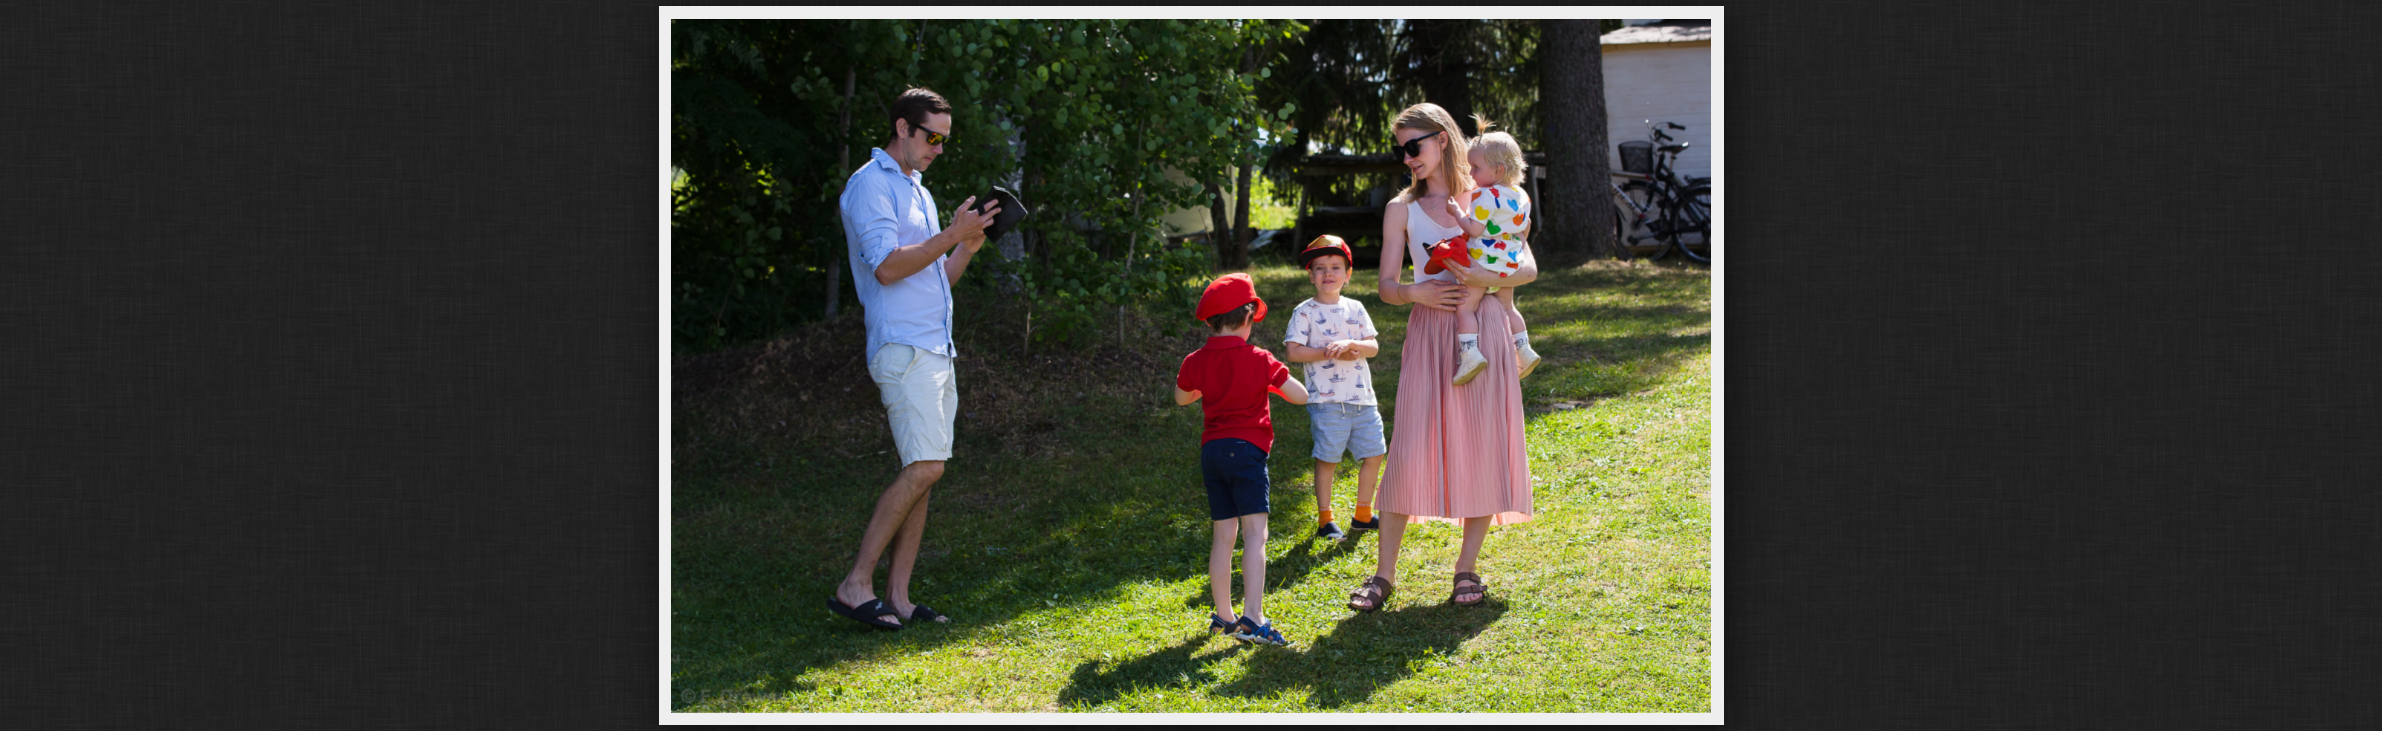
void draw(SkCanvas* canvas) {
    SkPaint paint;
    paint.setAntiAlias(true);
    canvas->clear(0xFF222222);
    canvas->drawImageRect(SkImages::DeferredFromEncodedData(SkData::MakeFromFileName("img1.png")), SkRect::MakeXYWH(0, 0, 2382, 731), SkSamplingOptions());
    paint.setColor(0x99000000);
    paint.setMaskFilter(SkMaskFilter::MakeBlur(kNormal_SkBlurStyle, 20));
    canvas->drawRect(SkRect::MakeXYWH(663, 14, 1065, 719), paint);
    paint.setMaskFilter(nullptr);
    paint.setColor(0xFFEEEEEE);
    canvas->drawRect(SkRect::MakeXYWH(659, 6, 1065, 719), paint);
    canvas->drawImageRect(SkImages::DeferredFromEncodedData(SkData::MakeFromFileName("img2.png")), SkRect::MakeXYWH(671, 19, 1040, 694), SkSamplingOptions());
}
